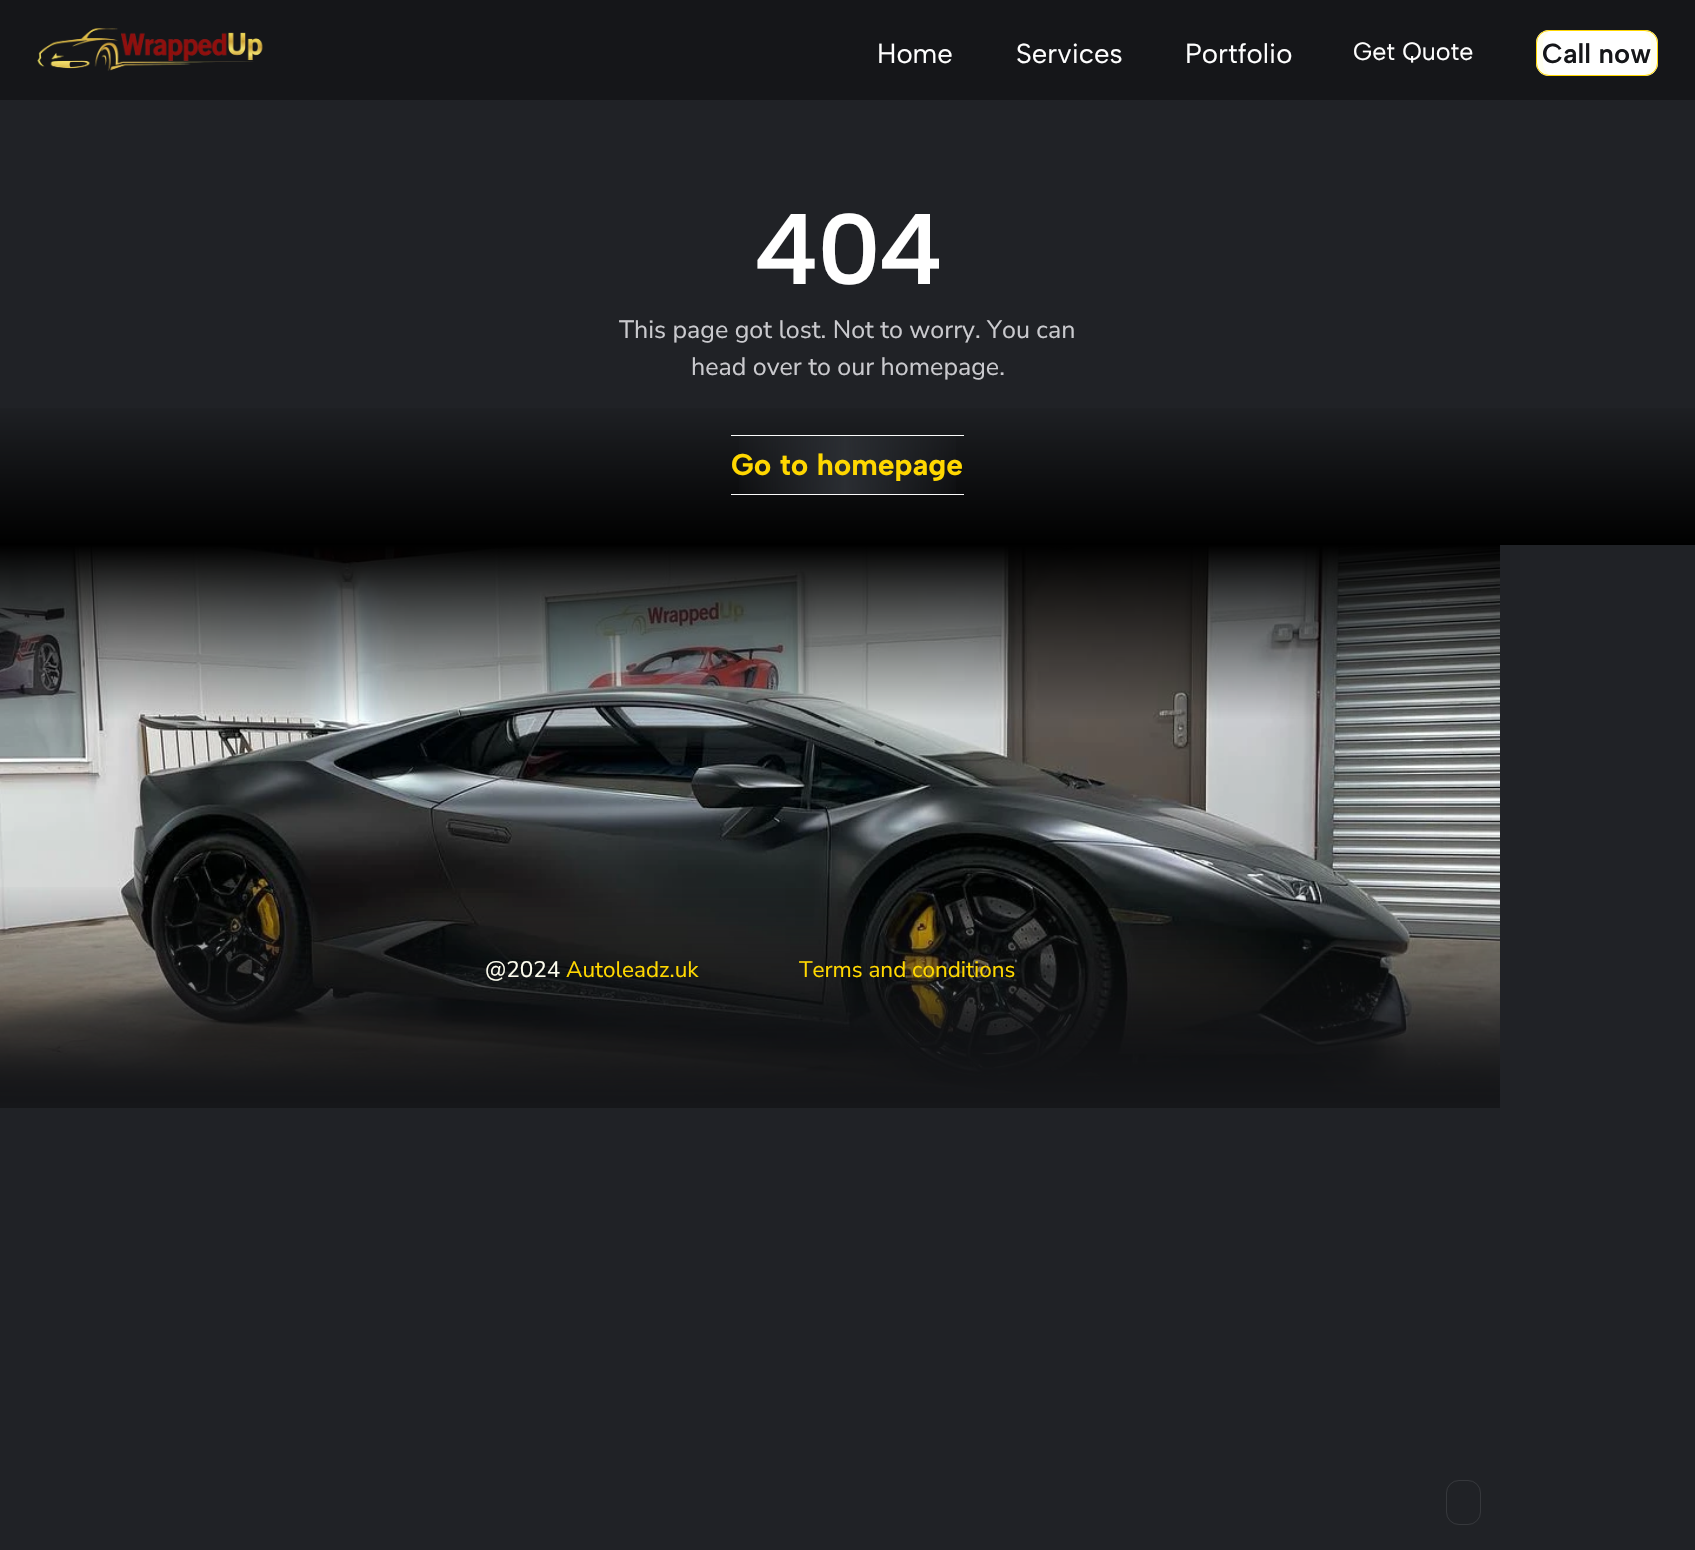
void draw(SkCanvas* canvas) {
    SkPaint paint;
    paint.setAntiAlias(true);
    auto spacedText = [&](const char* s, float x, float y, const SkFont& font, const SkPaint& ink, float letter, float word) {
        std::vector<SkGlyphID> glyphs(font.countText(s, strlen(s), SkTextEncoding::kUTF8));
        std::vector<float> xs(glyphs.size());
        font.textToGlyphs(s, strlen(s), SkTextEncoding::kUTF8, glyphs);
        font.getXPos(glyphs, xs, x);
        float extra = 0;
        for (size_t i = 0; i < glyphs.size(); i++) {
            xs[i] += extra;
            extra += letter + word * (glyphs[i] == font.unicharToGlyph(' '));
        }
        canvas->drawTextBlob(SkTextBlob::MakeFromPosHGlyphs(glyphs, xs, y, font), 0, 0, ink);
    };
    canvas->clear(0xFF202226);
    paint.setColor(0xFF151619);
    canvas->drawRect(SkRect::MakeXYWH(0, 0, 1695, 100), paint);
    canvas->drawImageRect(SkImages::DeferredFromEncodedData(SkData::MakeFromFileName("img1.png")), SkRect::MakeXYWH(37, 28, 226, 43), SkSamplingOptions());
    SkFont font1(fontMgr->matchFamilyStyle("Albert Sans", SkFontStyle::Normal()), 27.5f);
    font1.setSubpixel(true);
    paint.setColor(0xFFFFFFFF);
    canvas->drawString("Home", 877, 63, font1, paint);
    canvas->drawString("Services", 1016, 63, font1, paint);
    canvas->drawString("Portfolio", 1185, 63, font1, paint);
    SkFont font2(fontMgr->matchFamilyStyle("Albert Sans", SkFontStyle::Normal()), 25);
    font2.setSubpixel(true);
    canvas->drawString("Get Quote", 1353, 60, font2, paint);
    paint.setColor(0xFFFFFFF0);
    canvas->drawRoundRect(SkRect::MakeXYWH(1536, 30, 122, 46), 13, 13, paint);
    paint.setColor(0xFFFFFFFF);
    canvas->drawRoundRect(SkRect::MakeXYWH(1543, 30, 108, 46), 13, 13, paint);
    paint.setStyle(SkPaint::kStroke_Style);
    paint.setStrokeWidth(1);
    paint.setColor(0xFFFFD700);
    canvas->drawRoundRect(SkRect::MakeXYWH(1536.5f, 30.5f, 121, 45), 12.5f, 12.5f, paint);
    SkFont font3(fontMgr->matchFamilyStyle("Albert Sans", SkFontStyle(600, SkFontStyle::kNormal_Width, SkFontStyle::kUpright_Slant)), 27.5f);
    font3.setSubpixel(true);
    paint.setStyle(SkPaint::kFill_Style);
    paint.setColor(0xFF151619);
    canvas->drawString("Call now", 1542, 63, font3, paint);
    {
        const SkColor colors[] = {0xFF202226, 0xFF000000};
        const float stops[] = {0.73f, 1};
        const SkPoint ends[] = {{848, 0}, {848, 545}};
        paint.setShader(SkGradientShader::MakeLinear(ends, colors, stops, 2, SkTileMode::kClamp));
        paint.setAlpha(255);
    }
    canvas->drawRect(SkRect::MakeXYWH(0, 408, 1695, 137), paint);
    SkFont font4(fontMgr->matchFamilyStyle("Albert Sans", SkFontStyle(600, SkFontStyle::kNormal_Width, SkFontStyle::kUpright_Slant)), 100);
    font4.setSubpixel(true);
    paint.setShader(nullptr);
    paint.setColor(0xFFFFFFFF);
    spacedText("404", 754, 284, font4, paint, -2.5f, 0);
    SkFont font5(fontMgr->matchFamilyStyle("Nunito Sans", SkFontStyle::Normal()), 25);
    font5.setSubpixel(true);
    paint.setColor(0xFFCACACE);
    canvas->drawString("This page got lost. Not to worry. You can", 619, 338, font5, paint);
    canvas->drawString("head over to our homepage.", 691, 375, font5, paint);
    {
        const SkColor colors[] = {0x002A2D32, 0xFF2A2D32, 0x002A2D32};
        const float stops[] = {0, 0.49f, 1};
        const SkPoint ends[] = {{731, 465}, {964, 465}};
        paint.setShader(SkGradientShader::MakeLinear(ends, colors, stops, 3, SkTileMode::kClamp));
        paint.setAlpha(255);
    }
    canvas->drawRect(SkRect::MakeXYWH(739, 435, 217, 60), paint);
    paint.setShader(nullptr);
    paint.setColor(0xFAFFFFFF);
    canvas->drawRect(SkRect::MakeXYWH(731, 435, 233, 1), paint);
    canvas->drawRect(SkRect::MakeXYWH(731, 494, 233, 1), paint);
    SkFont font6(fontMgr->matchFamilyStyle("Albert Sans", SkFontStyle::Bold()), 30);
    font6.setSubpixel(true);
    paint.setColor(0xFFFFD700);
    canvas->drawString("Go to homepage", 731, 475, font6, paint);
    canvas->drawImageRect(SkImages::DeferredFromEncodedData(SkData::MakeFromFileName("img2.png")), SkRect::MakeXYWH(0, 546, 1500, 561), SkSamplingOptions());
    {
        const SkColor colors[] = {0xFF000000, 0x00000000, 0x00000000, 0xFF000000};
        const float stops[] = {0, 0.31f, 0.78f, 1};
        const SkPoint ends[] = {{750, 545}, {750, 1108}};
        paint.setShader(SkGradientShader::MakeLinear(ends, colors, stops, 4, SkTileMode::kClamp));
        paint.setAlpha(255);
    }
    canvas->drawRect(SkRect::MakeXYWH(0, 545, 1500, 562), paint);
    {
        const SkColor colors[] = {0x00151619, 0xFF151619};
        const float stops[] = {0, 1};
        const SkPoint ends[] = {{750, 882}, {750, 1108}};
        paint.setShader(SkGradientShader::MakeLinear(ends, colors, stops, 2, SkTileMode::kClamp));
        paint.setAlpha(255);
    }
    canvas->drawRect(SkRect::MakeXYWH(0, 887, 1500, 221), paint);
    SkFont font7(fontMgr->matchFamilyStyle("Nunito Sans", SkFontStyle::Normal()), 22.5f);
    font7.setSubpixel(true);
    paint.setShader(nullptr);
    paint.setColor(0xFFFFFFF0);
    canvas->drawString("@2024", 485, 977, font7, paint);
    paint.setColor(0xFFFFD700);
    canvas->drawString("Autoleadz.uk", 566, 977, font7, paint);
    canvas->drawString("Terms and conditions", 799, 977, font7, paint);
    paint.setStyle(SkPaint::kStroke_Style);
    paint.setColor(0xFF36383C);
    canvas->drawRoundRect(SkRect::MakeXYWH(1446.5f, 1480.5f, 34, 44), 12.5f, 12.5f, paint);
}
